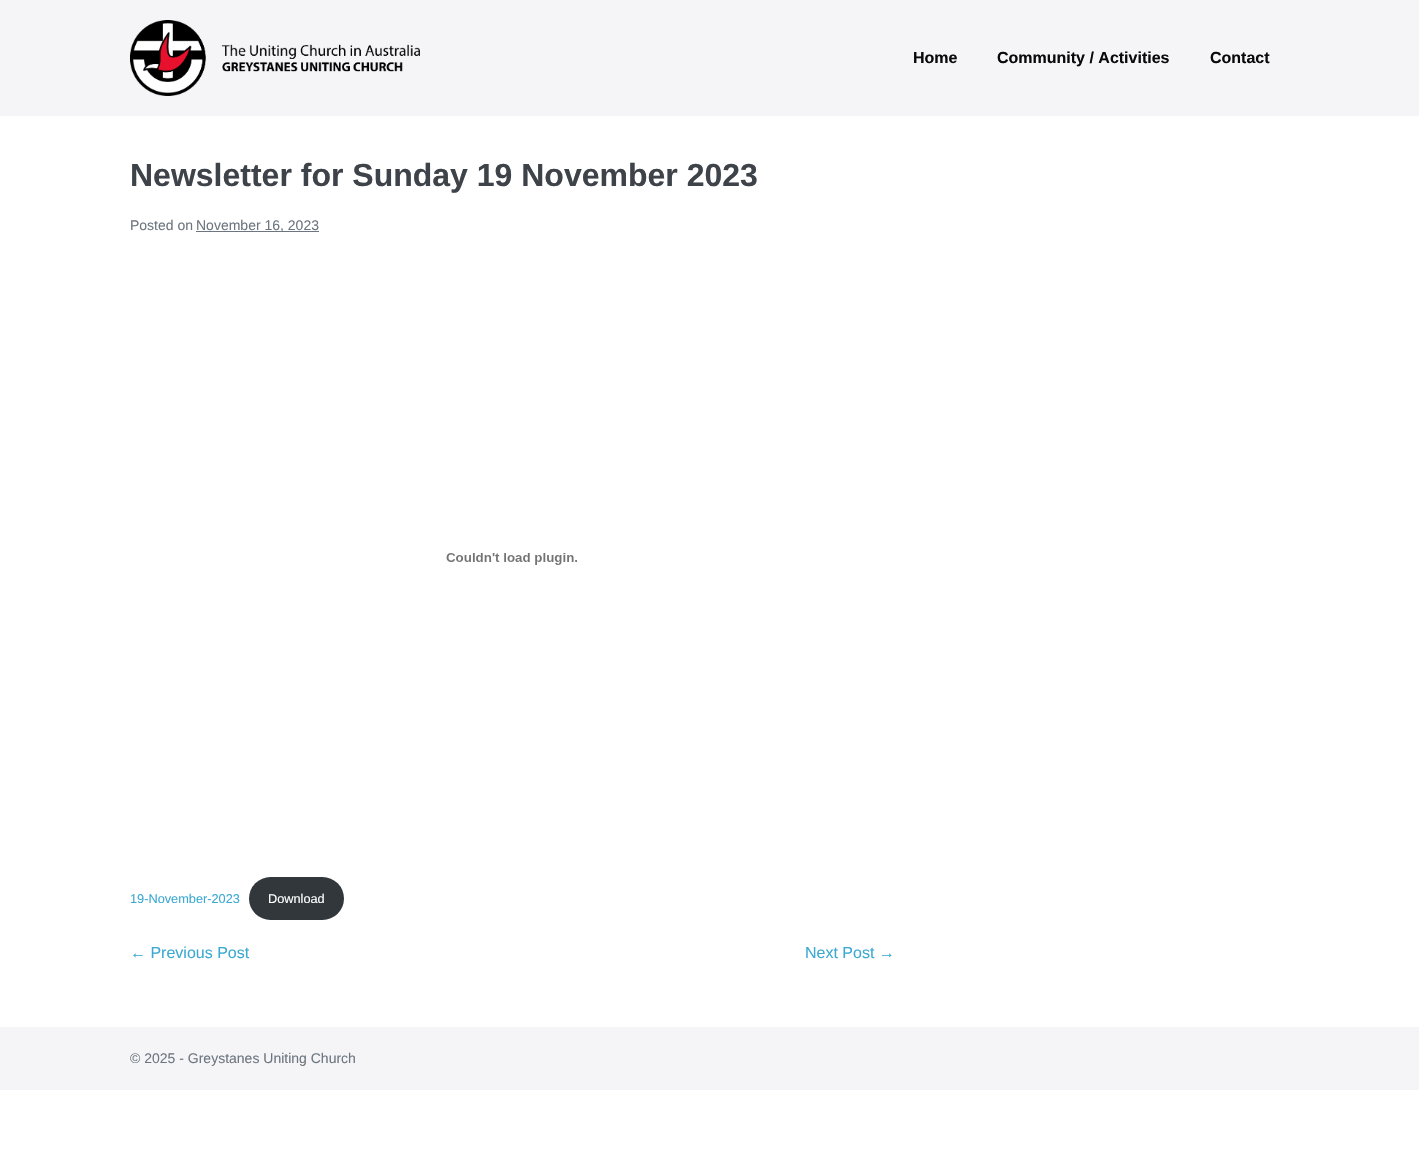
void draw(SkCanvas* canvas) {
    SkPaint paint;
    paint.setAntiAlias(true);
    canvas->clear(0xFFFFFFFF);
    paint.setColor(0xFFF5F5F7);
    canvas->drawRect(SkRect::MakeXYWH(0, 0, 1419, 116), paint);
    canvas->drawImageRect(SkImages::DeferredFromEncodedData(SkData::MakeFromFileName("img1.png")), SkRect::MakeXYWH(130, 20, 290, 76), SkSamplingOptions());
    SkFont font1(fontMgr->matchFamilyStyle("Liberation Sans", SkFontStyle::Bold()), 16);
    font1.setSubpixel(true);
    paint.setColor(0xFF0A0A0A);
    canvas->drawString("Home", 913, 63, font1, paint);
    canvas->drawString("Community / Activities", 997, 63, font1, paint);
    canvas->drawString("Contact", 1210, 63, font1, paint);
    SkFont font2(fontMgr->matchFamilyStyle("Liberation Sans", SkFontStyle::Bold()), 32);
    font2.setSubpixel(true);
    paint.setColor(0xFF3E4349);
    canvas->drawString("Newsletter for Sunday 19 November 2023", 130, 186, font2, paint);
    SkFont font3(fontMgr->matchFamilyStyle("Liberation Sans", SkFontStyle::Normal()), 14);
    font3.setSubpixel(true);
    paint.setColor(0xFF6D7680);
    canvas->drawString("Posted on", 130, 230, font3, paint);
    canvas->drawRect(SkRect::MakeXYWH(196, 231, 123, 1), paint);
    canvas->drawString("November 16, 2023", 196, 230, font3, paint);
    canvas->drawImageRect(SkImages::DeferredFromEncodedData(SkData::MakeFromFileName("img2.png")), SkRect::MakeXYWH(446, 553, 131, 12), SkSamplingOptions());
    SkFont font4(fontMgr->matchFamilyStyle("Liberation Sans", SkFontStyle::Normal()), 12.75f);
    font4.setSubpixel(true);
    paint.setColor(0xFF3BA9D2);
    canvas->drawString("19-November-2023", 130, 903, font4, paint);
    paint.setColor(0xFF32373C);
    canvas->drawRoundRect(SkRect::MakeXYWH(249, 877, 95, 43), 21.5f, 21.5f, paint);
    paint.setColor(0xFFFFFFFF);
    canvas->drawString("Download", 268, 903, font4, paint);
    SkFont font5(fontMgr->matchFamilyStyle("Liberation Sans", SkFontStyle::Normal()), 16);
    font5.setSubpixel(true);
    paint.setColor(0xFF3BA9D2);
    canvas->drawString("← Previous Post", 130, 958, font5, paint);
    canvas->drawString("Next Post →", 805, 958, font5, paint);
    paint.setColor(0xFFF5F5F7);
    canvas->drawRect(SkRect::MakeXYWH(0, 1027, 1419, 63), paint);
    paint.setColor(0xFF6D7680);
    canvas->drawString("© 2025 - Greystanes Uniting Church", 130, 1063, font3, paint);
}
